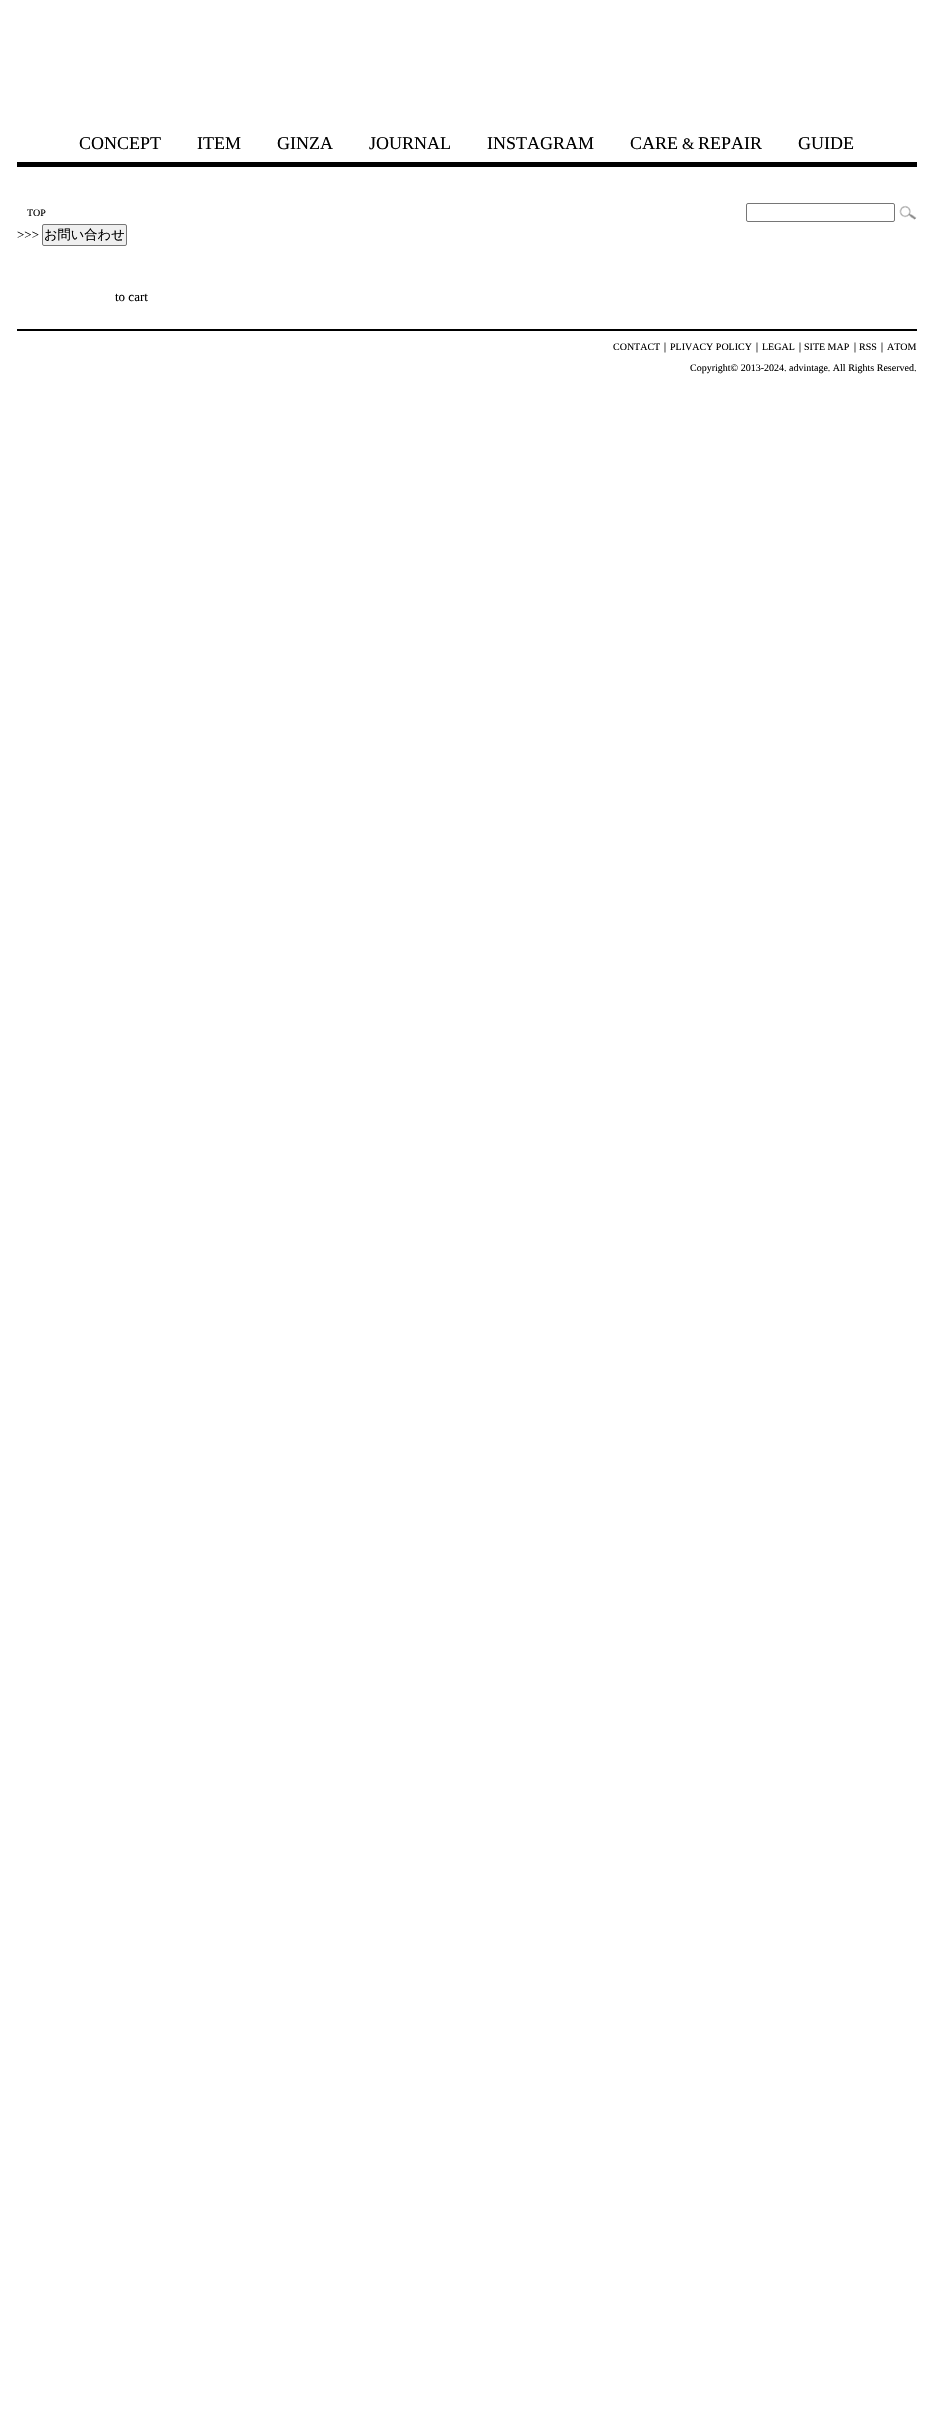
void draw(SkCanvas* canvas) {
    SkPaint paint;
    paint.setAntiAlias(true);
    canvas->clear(0xFFFFFFFF);
    SkFont font1(fontMgr->matchFamilyStyle("Liberation Serif", SkFontStyle::Normal()), 18);
    font1.setSubpixel(true);
    paint.setColor(0xFF000000);
    canvas->drawString("CONCEPT", 79, 149, font1, paint);
    canvas->drawString("ITEM", 197, 149, font1, paint);
    canvas->drawString("GINZA", 277, 149, font1, paint);
    canvas->drawString("JOURNAL", 369, 149, font1, paint);
    canvas->drawString("INSTAGRAM", 487, 149, font1, paint);
    canvas->drawString("CARE", 630, 149, font1, paint);
    SkFont font2(fontMgr->matchFamilyStyle("Liberation Serif", SkFontStyle::Normal()), 16);
    font2.setSubpixel(true);
    canvas->drawString("&", 682, 149, font2, paint);
    canvas->drawString("REPAIR", 698, 149, font1, paint);
    canvas->drawString("GUIDE", 798, 149, font1, paint);
    canvas->drawRect(SkRect::MakeXYWH(17, 162, 900, 5), paint);
    SkFont font3(fontMgr->matchFamilyStyle("Liberation Serif", SkFontStyle::Normal()), 10);
    font3.setSubpixel(true);
    canvas->drawString("TOP", 27, 216, font3, paint);
    paint.setStyle(SkPaint::kStroke_Style);
    paint.setStrokeWidth(1);
    paint.setColor(0xFF767676);
    canvas->drawRoundRect(SkRect::MakeXYWH(746.5f, 203.5f, 148, 18), 1.5f, 1.5f, paint);
    canvas->drawImageRect(SkImages::DeferredFromEncodedData(SkData::MakeFromFileName("img1.png")), SkRect::MakeXYWH(899, 205, 18, 15), SkSamplingOptions());
    SkFont font4(fontMgr->matchFamilyStyle("Liberation Serif", SkFontStyle::Normal()), 13);
    font4.setSubpixel(true);
    paint.setStyle(SkPaint::kFill_Style);
    paint.setColor(0xFF000000);
    canvas->drawString(">>>", 17, 239, font4, paint);
    paint.setColor(0xFFEFEFEF);
    canvas->drawRoundRect(SkRect::MakeXYWH(42.5f, 224.5f, 84, 21), 1.5f, 1.5f, paint);
    paint.setStyle(SkPaint::kStroke_Style);
    paint.setColor(0xFF767676);
    canvas->drawRoundRect(SkRect::MakeXYWH(42.5f, 224.5f, 84, 21), 1.5f, 1.5f, paint);
    SkFont font5(fontMgr->matchFamilyStyle("WenQuanYi Zen Hei", SkFontStyle(500, SkFontStyle::kNormal_Width, SkFontStyle::kUpright_Slant)), 13.25f);
    font5.setSubpixel(true);
    paint.setStyle(SkPaint::kFill_Style);
    paint.setColor(0xFF000000);
    canvas->drawString("お問い合わせ", 44, 239, font5, paint);
    canvas->drawString("to cart", 115, 301, font4, paint);
    canvas->drawRect(SkRect::MakeXYWH(17, 329, 900, 2), paint);
    canvas->drawString("CONTACT", 613, 350, font3, paint);
    SkFont font6(fontMgr->matchFamilyStyle("WenQuanYi Zen Hei", SkFontStyle(500, SkFontStyle::kNormal_Width, SkFontStyle::kUpright_Slant)), 10);
    font6.setSubpixel(true);
    canvas->drawString("｜", 660, 350, font6, paint);
    canvas->drawString("PLIVACY POLICY", 670, 350, font3, paint);
    canvas->drawString("｜", 752, 350, font6, paint);
    canvas->drawString("LEGAL", 762, 350, font3, paint);
    canvas->drawString("｜", 795, 350, font6, paint);
    canvas->drawString("SITE MAP", 804, 350, font3, paint);
    canvas->drawString("｜", 850, 350, font6, paint);
    canvas->drawString("RSS", 859, 350, font3, paint);
    canvas->drawString("｜", 877, 350, font6, paint);
    canvas->drawString("ATOM", 887, 350, font3, paint);
    canvas->drawString("Copyright© 2013-2024. advintage. All Rights Reserved.", 690, 371, font3, paint);
}
